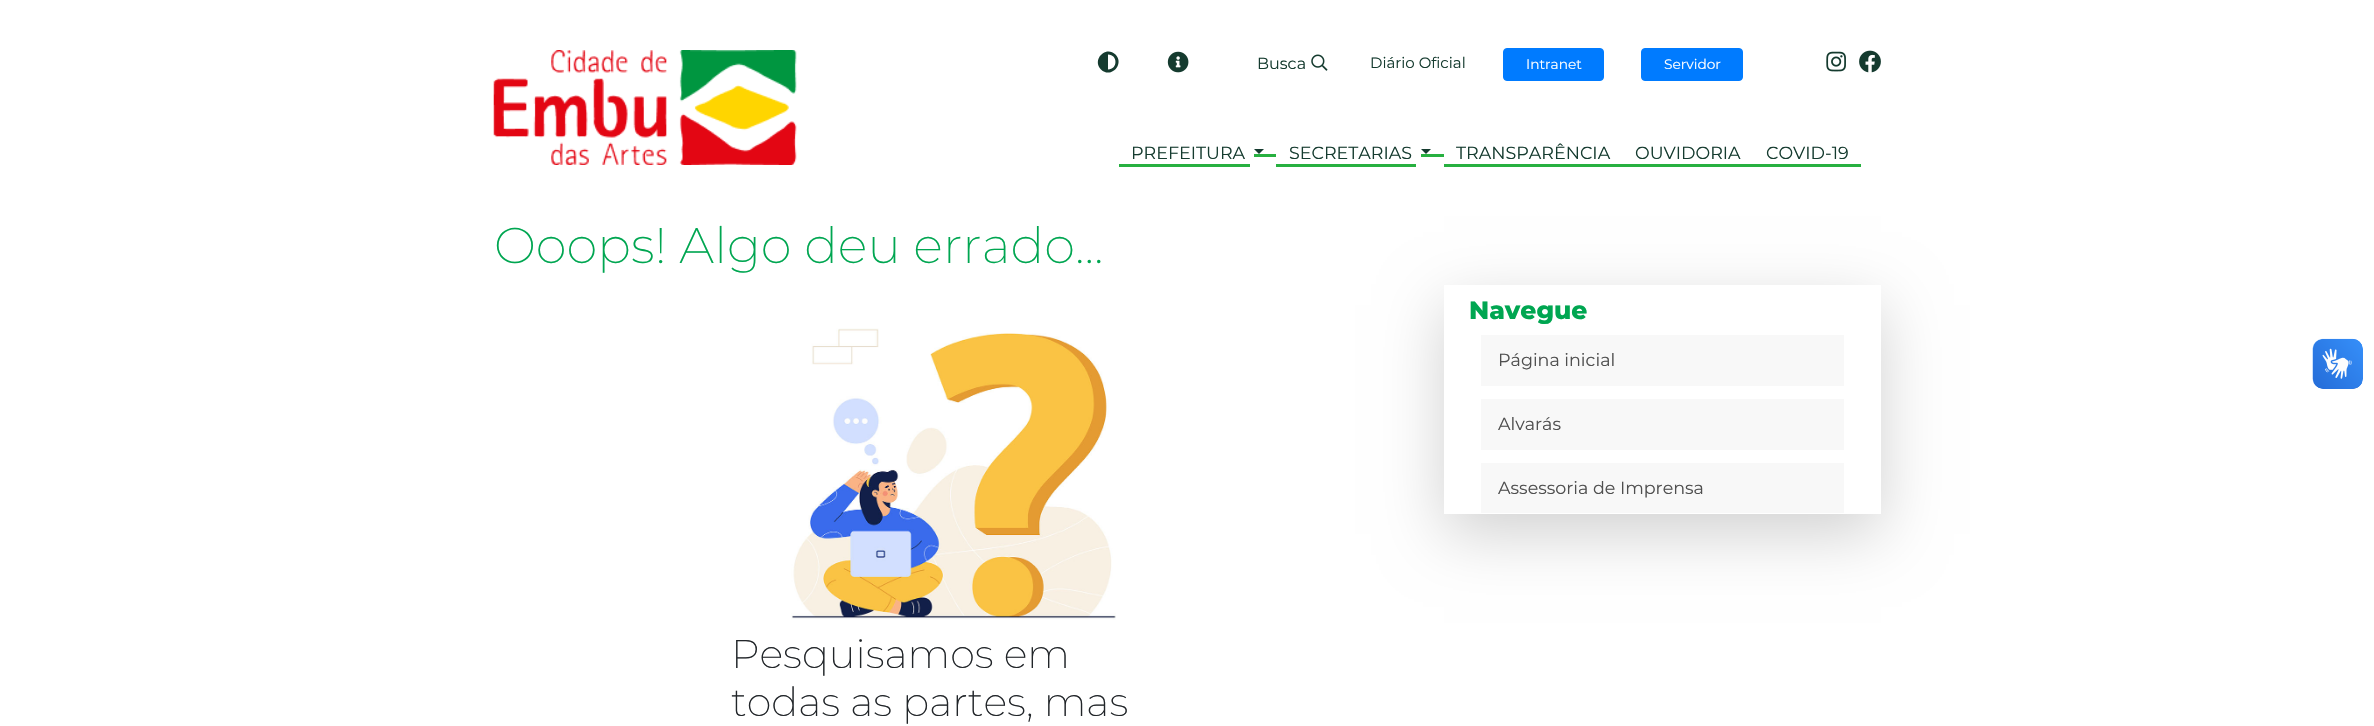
void draw(SkCanvas* canvas) {
    SkPaint paint;
    paint.setAntiAlias(true);
    canvas->clear(0xFFFFFFFF);
    canvas->drawImageRect(SkImages::DeferredFromEncodedData(SkData::MakeFromFileName("img1.png")), SkRect::MakeXYWH(493, 50, 304, 115), SkSamplingOptions());
    paint.setColor(0xFF153B2F);
    canvas->drawPath(SkPathBuilder().moveTo(1101, 69.5f).cubicTo(1091.5f, 59.5f, 1106, 45, 1115.5f, 54.5f).cubicTo(1125, 64.5f, 1110.5f, 79, 1101, 69.5f).close().moveTo(1108, 69.5f).cubicTo(1118, 69.5f, 1118, 54.5f, 1108, 54.5f).close().detach(), paint);
    canvas->drawImageRect(SkImages::DeferredFromEncodedData(SkData::MakeFromFileName("img2.png")), SkRect::MakeXYWH(1167, 51, 22, 22), SkSamplingOptions());
    SkFont font1(fontMgr->matchFamilyStyle("Montserrat", SkFontStyle::Normal()), 16);
    font1.setSubpixel(true);
    canvas->drawString("Busca", 1257, 69, font1, paint);
    canvas->drawImageRect(SkImages::DeferredFromEncodedData(SkData::MakeFromFileName("img3.png")), SkRect::MakeXYWH(1311, 54, 17, 17), SkSamplingOptions());
    SkFont font2(fontMgr->matchFamilyStyle("Montserrat", SkFontStyle::Normal()), 15);
    font2.setSubpixel(true);
    canvas->drawString("Diário Oficial", 1370, 68, font2, paint);
    paint.setColor(0xFF007BFF);
    canvas->drawRoundRect(SkRect::MakeXYWH(1503.5f, 48.5f, 100, 32), 3.5f, 3.5f, paint);
    paint.setStyle(SkPaint::kStroke_Style);
    paint.setStrokeWidth(1);
    canvas->drawRoundRect(SkRect::MakeXYWH(1503.5f, 48.5f, 100, 32), 3.5f, 3.5f, paint);
    SkFont font3(fontMgr->matchFamilyStyle("Montserrat", SkFontStyle::Normal()), 13.75f);
    font3.setSubpixel(true);
    paint.setStyle(SkPaint::kFill_Style);
    paint.setColor(0xFFFFFFFF);
    canvas->drawString("Intranet", 1526, 69, font3, paint);
    paint.setColor(0xFF007BFF);
    canvas->drawRoundRect(SkRect::MakeXYWH(1641.5f, 48.5f, 101, 32), 3.5f, 3.5f, paint);
    paint.setStyle(SkPaint::kStroke_Style);
    canvas->drawRoundRect(SkRect::MakeXYWH(1641.5f, 48.5f, 101, 32), 3.5f, 3.5f, paint);
    paint.setStyle(SkPaint::kFill_Style);
    paint.setColor(0xFFFFFFFF);
    canvas->drawString("Servidor", 1664, 69, font3, paint);
    canvas->drawImageRect(SkImages::DeferredFromEncodedData(SkData::MakeFromFileName("img4.png")), SkRect::MakeXYWH(1826, 51, 20, 21), SkSamplingOptions());
    canvas->drawImageRect(SkImages::DeferredFromEncodedData(SkData::MakeFromFileName("img5.png")), SkRect::MakeXYWH(1859, 50, 22, 23), SkSamplingOptions());
    canvas->drawImageRect(SkImages::DeferredFromEncodedData(SkData::MakeFromFileName("img6.png")), SkRect::MakeXYWH(2312, 338, 51, 51), SkSamplingOptions());
    canvas->drawImageRect(SkImages::DeferredFromEncodedData(SkData::MakeFromFileName("img7.png")), SkRect::MakeXYWH(2313, 339, 50, 50), SkSamplingOptions());
    paint.setColor(0xFF27B040);
    canvas->drawRect(SkRect::MakeXYWH(1119, 164, 131, 3), paint);
    canvas->drawRect(SkRect::MakeXYWH(1254, 154, 22, 3), paint);
    SkFont font4(fontMgr->matchFamilyStyle("Montserrat", SkFontStyle::Normal()), 17.5f);
    font4.setSubpixel(true);
    paint.setColor(0xFF153B2F);
    canvas->drawString("PREFEITURA", 1131, 159, font4, paint);
    canvas->drawPath(SkPathBuilder().moveTo(1254, 149).lineTo(1264, 149).lineTo(1259, 154).close().detach(), paint);
    paint.setColor(0xFF27B040);
    canvas->drawRect(SkRect::MakeXYWH(1276, 164, 140, 3), paint);
    canvas->drawRect(SkRect::MakeXYWH(1421, 154, 23, 3), paint);
    paint.setColor(0xFF153B2F);
    canvas->drawString("SECRETARIAS", 1289, 159, font4, paint);
    canvas->drawPath(SkPathBuilder().moveTo(1421, 149).lineTo(1431, 149).lineTo(1426, 154).close().detach(), paint);
    canvas->drawString("TRANSPARÊNCIA", 1456, 159, font4, paint);
    paint.setColor(0xFF27B040);
    canvas->drawRect(SkRect::MakeXYWH(1444, 164, 417, 3), paint);
    paint.setColor(0xFF153B2F);
    canvas->drawString("OUVIDORIA", 1635, 159, font4, paint);
    canvas->drawString("COVID-19", 1766, 159, font4, paint);
    SkFont font5(fontMgr->matchFamilyStyle("Montserrat", SkFontStyle(200, SkFontStyle::kNormal_Width, SkFontStyle::kUpright_Slant)), 50);
    font5.setSubpixel(true);
    paint.setColor(0xFF00A651);
    canvas->drawString("Ooops! Algo deu errado...", 494, 263, font5, paint);
    canvas->save();
    canvas->clipPath(SkPathBuilder(SkPathFillType::kEvenOdd).moveTo(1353, 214).lineTo(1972, 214).lineTo(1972, 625).lineTo(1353, 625).close().moveTo(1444, 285).lineTo(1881, 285).lineTo(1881, 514).lineTo(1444, 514).close().detach(), true);
    paint.setColor(0x2E000000);
    paint.setMaskFilter(SkMaskFilter::MakeBlur(kNormal_SkBlurStyle, 30));
    canvas->drawRect(SkRect::MakeXYWH(1444, 305, 437, 229), paint);
    paint.setMaskFilter(nullptr);
    canvas->restore();
    SkFont font6(fontMgr->matchFamilyStyle("Montserrat", SkFontStyle(800, SkFontStyle::kNormal_Width, SkFontStyle::kUpright_Slant)), 25);
    font6.setSubpixel(true);
    paint.setColor(0xFF00A651);
    canvas->drawString("Navegue", 1469, 319, font6, paint);
    paint.setColor(0xFFF8F8F8);
    canvas->drawRect(SkRect::MakeXYWH(1481, 335, 363, 51), paint);
    paint.setColor(0xFF4F4F4F);
    canvas->drawString("Página inicial", 1498, 366, font4, paint);
    paint.setColor(0xFFF8F8F8);
    canvas->drawRect(SkRect::MakeXYWH(1481, 399, 363, 51), paint);
    paint.setColor(0xFF4F4F4F);
    canvas->drawString("Alvarás", 1498, 430, font4, paint);
    paint.setColor(0xFFF8F8F8);
    canvas->drawRect(SkRect::MakeXYWH(1481, 463, 363, 50), paint);
    paint.setColor(0xFF4F4F4F);
    canvas->drawString("Assessoria de Imprensa", 1498, 494, font4, paint);
    canvas->drawImageRect(SkImages::DeferredFromEncodedData(SkData::MakeFromFileName("img8.png")), SkRect::MakeXYWH(791, 328, 325, 292), SkSamplingOptions());
    SkFont font7(fontMgr->matchFamilyStyle("Montserrat", SkFontStyle(200, SkFontStyle::kNormal_Width, SkFontStyle::kUpright_Slant)), 40);
    font7.setSubpixel(true);
    paint.setColor(0xFF212529);
    canvas->drawString("Pesquisamos em", 731, 668, font7, paint);
    canvas->drawString("todas as partes, mas", 731, 716, font7, paint);
}
